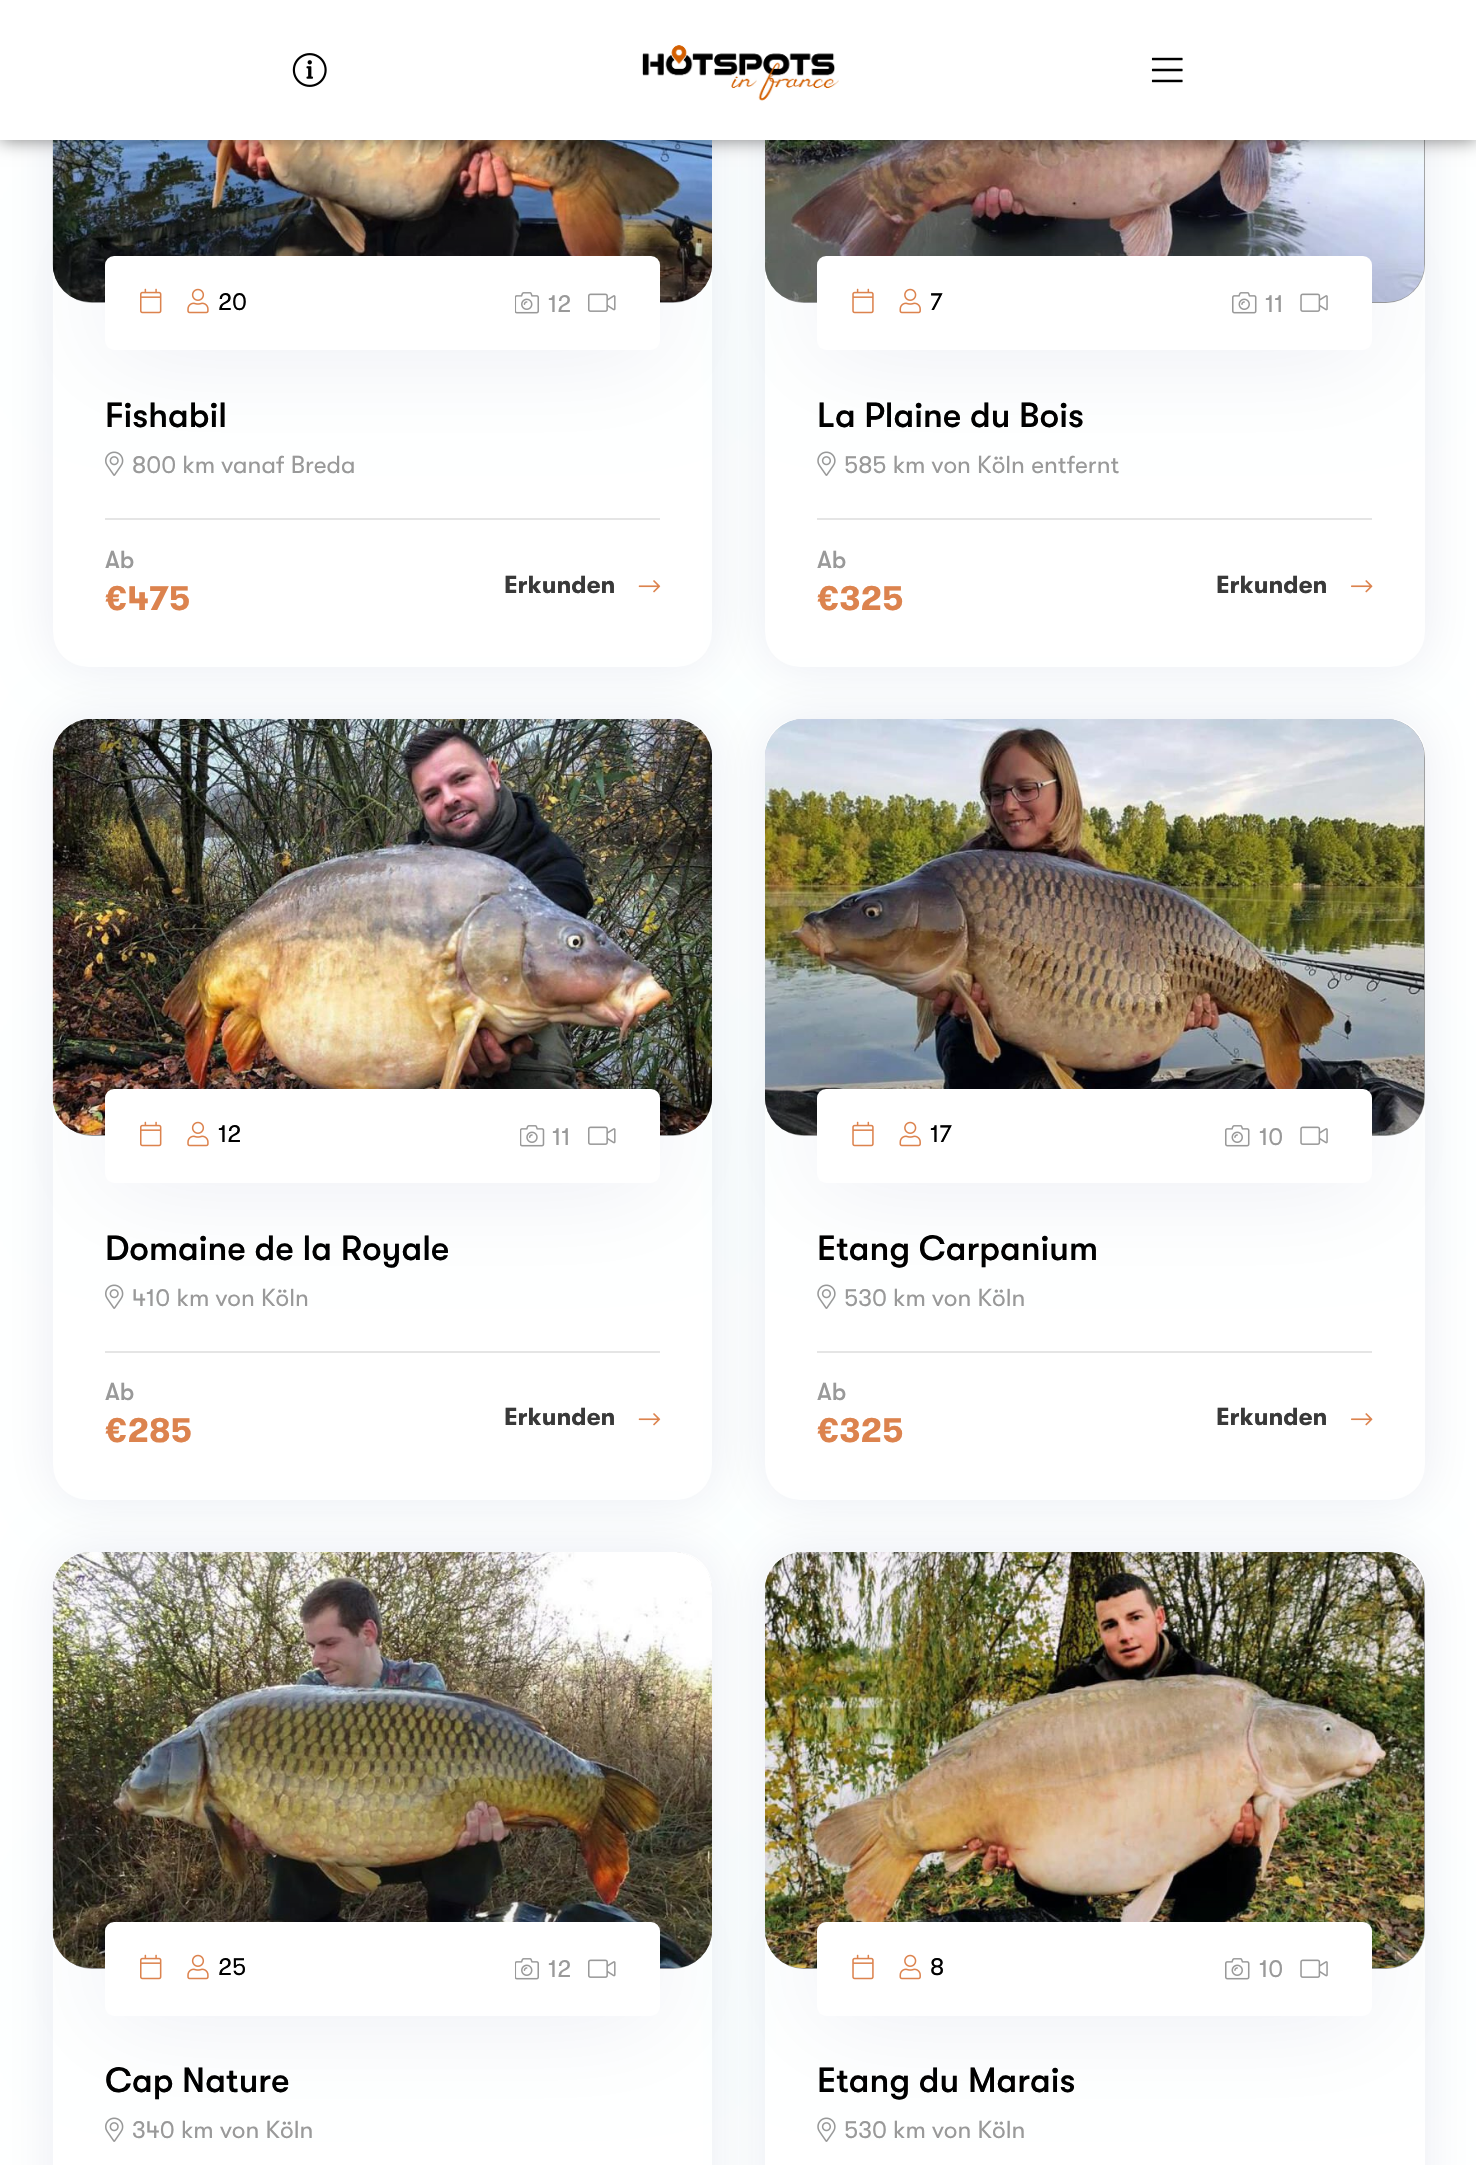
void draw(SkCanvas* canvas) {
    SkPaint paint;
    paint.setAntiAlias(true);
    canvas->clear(0xFFFFFFFF);
    paint.setColor(0x14061E62);
    paint.setMaskFilter(SkMaskFilter::MakeBlur(kNormal_SkBlurStyle, 26));
    canvas->drawRoundRect(SkRect::MakeXYWH(53, -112, 659, 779), 35, 35, paint);
    paint.setMaskFilter(nullptr);
    paint.setColor(0xFFFFFFFF);
    canvas->drawRoundRect(SkRect::MakeXYWH(53, -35, 659, 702), 35, 35, paint);
    paint.setColor(0x14061E62);
    paint.setMaskFilter(SkMaskFilter::MakeBlur(kNormal_SkBlurStyle, 26));
    canvas->drawRoundRect(SkRect::MakeXYWH(765, -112, 660, 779), 35, 35, paint);
    paint.setMaskFilter(nullptr);
    paint.setColor(0xFF999999);
    canvas->drawRoundRect(SkRect::MakeXYWH(53, -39, 659, 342), 39, 39, paint);
    canvas->drawImageRect(SkImages::DeferredFromEncodedData(SkData::MakeFromFileName("img4.png")), SkRect::MakeXYWH(52, 140, 660, 162), SkSamplingOptions());
    paint.setColor(0xFFFFFFFF);
    canvas->drawRoundRect(SkRect::MakeXYWH(765, -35, 660, 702), 35, 35, paint);
    paint.setColor(0xFF999999);
    canvas->drawRoundRect(SkRect::MakeXYWH(765, -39, 660, 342), 39, 39, paint);
    canvas->drawImageRect(SkImages::DeferredFromEncodedData(SkData::MakeFromFileName("img11.png")), SkRect::MakeXYWH(765, 140, 660, 162), SkSamplingOptions());
    paint.setColor(0x80000000);
    paint.setMaskFilter(SkMaskFilter::MakeBlur(kNormal_SkBlurStyle, 9));
    canvas->drawRect(SkRect::MakeXYWH(0, 0, 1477, 140), paint);
    paint.setMaskFilter(nullptr);
    canvas->drawImageRect(SkImages::DeferredFromEncodedData(SkData::MakeFromFileName("img9.png")), SkRect::MakeXYWH(105, 451, 19, 25), SkSamplingOptions());
    paint.setColor(0x14061E62);
    paint.setMaskFilter(SkMaskFilter::MakeBlur(kNormal_SkBlurStyle, 52.5f));
    canvas->drawRoundRect(SkRect::MakeXYWH(105, 256, 555, 94), 9, 9, paint);
    paint.setMaskFilter(nullptr);
    paint.setColor(0xFFFFFFFF);
    canvas->drawRoundRect(SkRect::MakeXYWH(105, 256, 555, 94), 9, 9, paint);
    canvas->drawImageRect(SkImages::DeferredFromEncodedData(SkData::MakeFromFileName("img16.png")), SkRect::MakeXYWH(817, 451, 19, 25), SkSamplingOptions());
    paint.setColor(0x14061E62);
    paint.setMaskFilter(SkMaskFilter::MakeBlur(kNormal_SkBlurStyle, 52.5f));
    canvas->drawRoundRect(SkRect::MakeXYWH(817, 256, 555, 94), 9, 9, paint);
    paint.setMaskFilter(nullptr);
    paint.setColor(0xFFFFFFFF);
    canvas->drawRect(SkRect::MakeXYWH(0, 0, 1476, 140), paint);
    canvas->drawImageRect(SkImages::DeferredFromEncodedData(SkData::MakeFromFileName("img1.png")), SkRect::MakeXYWH(292, 53, 35, 34), SkSamplingOptions());
    canvas->drawImageRect(SkImages::DeferredFromEncodedData(SkData::MakeFromFileName("img2.png")), SkRect::MakeXYWH(642, 45, 197, 56), SkSamplingOptions());
    canvas->drawImageRect(SkImages::DeferredFromEncodedData(SkData::MakeFromFileName("img3.png")), SkRect::MakeXYWH(1151, 57, 32, 26), SkSamplingOptions());
    canvas->drawImageRect(SkImages::DeferredFromEncodedData(SkData::MakeFromFileName("img5.png")), SkRect::MakeXYWH(140, 288, 22, 26), SkSamplingOptions());
    canvas->drawImageRect(SkImages::DeferredFromEncodedData(SkData::MakeFromFileName("img6.png")), SkRect::MakeXYWH(187, 288, 22, 26), SkSamplingOptions());
    SkFont font1(fontMgr->matchFamilyStyle("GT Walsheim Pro", SkFontStyle::Normal()), 24.5f);
    font1.setSubpixel(true);
    paint.setColor(0xFF000000);
    canvas->drawString("20", 218, 310, font1, paint);
    canvas->drawImageRect(SkImages::DeferredFromEncodedData(SkData::MakeFromFileName("img7.png")), SkRect::MakeXYWH(515, 292, 24, 22), SkSamplingOptions());
    paint.setColor(0xFF999999);
    canvas->drawString("12", 548, 312, font1, paint);
    canvas->drawImageRect(SkImages::DeferredFromEncodedData(SkData::MakeFromFileName("img8.png")), SkRect::MakeXYWH(588, 293, 28, 19), SkSamplingOptions());
    SkFont font2(fontMgr->matchFamilyStyle("GT Walsheim Pro", SkFontStyle(500, SkFontStyle::kNormal_Width, SkFontStyle::kUpright_Slant)), 35);
    font2.setSubpixel(true);
    paint.setColor(0xFF000000);
    canvas->drawString("Fishabil", 105, 427, font2, paint);
    paint.setColor(0xFF999999);
    canvas->drawString("800 km vanaf Breda", 132, 473, font1, paint);
    paint.setColor(0xFFE5E5E5);
    canvas->drawRect(SkRect::MakeXYWH(105, 518, 555, 2), paint);
    SkFont font3(fontMgr->matchFamilyStyle("GT Walsheim Pro", SkFontStyle(500, SkFontStyle::kNormal_Width, SkFontStyle::kUpright_Slant)), 24.5f);
    font3.setSubpixel(true);
    paint.setColor(0xFF999999);
    canvas->drawString("Ab", 105, 568, font3, paint);
    SkFont font4(fontMgr->matchFamilyStyle("GT Walsheim Pro", SkFontStyle::Bold()), 35);
    font4.setSubpixel(true);
    paint.setColor(0xFFDC834E);
    canvas->drawString("€475", 105, 610, font4, paint);
    SkFont font5(fontMgr->matchFamilyStyle("GT Walsheim Pro", SkFontStyle::Bold()), 24.5f);
    font5.setSubpixel(true);
    paint.setColor(0xFF393939);
    canvas->drawString("Erkunden", 504, 593, font5, paint);
    canvas->drawImageRect(SkImages::DeferredFromEncodedData(SkData::MakeFromFileName("img10.png")), SkRect::MakeXYWH(638, 580, 23, 13), SkSamplingOptions());
    paint.setColor(0xFFFFFFFF);
    canvas->drawRoundRect(SkRect::MakeXYWH(817, 256, 555, 94), 9, 9, paint);
    canvas->drawImageRect(SkImages::DeferredFromEncodedData(SkData::MakeFromFileName("img12.png")), SkRect::MakeXYWH(852, 288, 22, 26), SkSamplingOptions());
    canvas->drawImageRect(SkImages::DeferredFromEncodedData(SkData::MakeFromFileName("img13.png")), SkRect::MakeXYWH(899, 288, 22, 26), SkSamplingOptions());
    paint.setColor(0xFF000000);
    canvas->drawString("7", 930, 310, font1, paint);
    canvas->drawImageRect(SkImages::DeferredFromEncodedData(SkData::MakeFromFileName("img14.png")), SkRect::MakeXYWH(1232, 292, 25, 22), SkSamplingOptions());
    paint.setColor(0xFF999999);
    canvas->drawString("11", 1265, 312, font1, paint);
    canvas->drawImageRect(SkImages::DeferredFromEncodedData(SkData::MakeFromFileName("img15.png")), SkRect::MakeXYWH(1300, 293, 28, 19), SkSamplingOptions());
    paint.setColor(0xFF000000);
    canvas->drawString("La Plaine du Bois", 817, 427, font2, paint);
    paint.setColor(0xFF999999);
    canvas->drawString("585 km von Köln entfernt", 844, 473, font1, paint);
    paint.setColor(0xFFE5E5E5);
    canvas->drawRect(SkRect::MakeXYWH(817, 518, 555, 2), paint);
    paint.setColor(0xFF999999);
    canvas->drawString("Ab", 817, 568, font3, paint);
    paint.setColor(0xFFDC834E);
    canvas->drawString("€325", 817, 610, font4, paint);
    paint.setColor(0xFF393939);
    canvas->drawString("Erkunden", 1216, 593, font5, paint);
    canvas->drawImageRect(SkImages::DeferredFromEncodedData(SkData::MakeFromFileName("img17.png")), SkRect::MakeXYWH(1351, 580, 22, 13), SkSamplingOptions());
    paint.setColor(0x14061E62);
    paint.setMaskFilter(SkMaskFilter::MakeBlur(kNormal_SkBlurStyle, 26));
    canvas->drawRoundRect(SkRect::MakeXYWH(53, 719, 659, 781), 35, 35, paint);
    paint.setMaskFilter(nullptr);
    paint.setColor(0xFFFFFFFF);
    canvas->drawRoundRect(SkRect::MakeXYWH(53, 719, 659, 781), 35, 35, paint);
    paint.setColor(0x14061E62);
    paint.setMaskFilter(SkMaskFilter::MakeBlur(kNormal_SkBlurStyle, 26));
    canvas->drawRoundRect(SkRect::MakeXYWH(765, 719, 660, 781), 35, 35, paint);
    paint.setMaskFilter(nullptr);
    paint.setColor(0xFF999999);
    canvas->drawRoundRect(SkRect::MakeXYWH(53, 719, 659, 417), 39, 39, paint);
    canvas->drawImageRect(SkImages::DeferredFromEncodedData(SkData::MakeFromFileName("img18.png")), SkRect::MakeXYWH(52, 719, 660, 416), SkSamplingOptions());
    canvas->drawImageRect(SkImages::DeferredFromEncodedData(SkData::MakeFromFileName("img9.png")), SkRect::MakeXYWH(105, 1284, 19, 25), SkSamplingOptions());
    paint.setColor(0xFFFFFFFF);
    canvas->drawRoundRect(SkRect::MakeXYWH(765, 719, 660, 781), 35, 35, paint);
    paint.setColor(0xFF999999);
    canvas->drawRoundRect(SkRect::MakeXYWH(765, 719, 660, 417), 39, 39, paint);
    canvas->drawImageRect(SkImages::DeferredFromEncodedData(SkData::MakeFromFileName("img20.png")), SkRect::MakeXYWH(765, 719, 660, 416), SkSamplingOptions());
    paint.setColor(0x14061E62);
    paint.setMaskFilter(SkMaskFilter::MakeBlur(kNormal_SkBlurStyle, 52.5f));
    canvas->drawRoundRect(SkRect::MakeXYWH(105, 1089, 555, 94), 9, 9, paint);
    paint.setMaskFilter(nullptr);
    paint.setColor(0xFFFFFFFF);
    canvas->drawRoundRect(SkRect::MakeXYWH(105, 1089, 555, 94), 9, 9, paint);
    canvas->drawImageRect(SkImages::DeferredFromEncodedData(SkData::MakeFromFileName("img5.png")), SkRect::MakeXYWH(140, 1121, 22, 26), SkSamplingOptions());
    canvas->drawImageRect(SkImages::DeferredFromEncodedData(SkData::MakeFromFileName("img6.png")), SkRect::MakeXYWH(187, 1121, 22, 26), SkSamplingOptions());
    paint.setColor(0xFF000000);
    canvas->drawString("12", 218, 1142, font1, paint);
    canvas->drawImageRect(SkImages::DeferredFromEncodedData(SkData::MakeFromFileName("img19.png")), SkRect::MakeXYWH(520, 1125, 25, 22), SkSamplingOptions());
    paint.setColor(0xFF999999);
    canvas->drawString("11", 552, 1145, font1, paint);
    canvas->drawImageRect(SkImages::DeferredFromEncodedData(SkData::MakeFromFileName("img8.png")), SkRect::MakeXYWH(588, 1126, 28, 19), SkSamplingOptions());
    paint.setColor(0xFF000000);
    canvas->drawString("Domaine de la Royale", 105, 1260, font2, paint);
    paint.setColor(0xFF999999);
    canvas->drawString("410 km von Köln", 132, 1306, font1, paint);
    paint.setColor(0xFFE5E5E5);
    canvas->drawRect(SkRect::MakeXYWH(105, 1351, 555, 2), paint);
    paint.setColor(0xFF999999);
    canvas->drawString("Ab", 105, 1400, font3, paint);
    paint.setColor(0xFFDC834E);
    canvas->drawString("€285", 105, 1442, font4, paint);
    paint.setColor(0xFF393939);
    canvas->drawString("Erkunden", 504, 1425, font5, paint);
    canvas->drawImageRect(SkImages::DeferredFromEncodedData(SkData::MakeFromFileName("img10.png")), SkRect::MakeXYWH(638, 1413, 23, 13), SkSamplingOptions());
    canvas->drawImageRect(SkImages::DeferredFromEncodedData(SkData::MakeFromFileName("img16.png")), SkRect::MakeXYWH(817, 1284, 19, 25), SkSamplingOptions());
    paint.setColor(0x14061E62);
    paint.setMaskFilter(SkMaskFilter::MakeBlur(kNormal_SkBlurStyle, 52.5f));
    canvas->drawRoundRect(SkRect::MakeXYWH(817, 1089, 555, 94), 9, 9, paint);
    paint.setMaskFilter(nullptr);
    paint.setColor(0xFFFFFFFF);
    canvas->drawRoundRect(SkRect::MakeXYWH(817, 1089, 555, 94), 9, 9, paint);
    canvas->drawImageRect(SkImages::DeferredFromEncodedData(SkData::MakeFromFileName("img12.png")), SkRect::MakeXYWH(852, 1121, 22, 26), SkSamplingOptions());
    canvas->drawImageRect(SkImages::DeferredFromEncodedData(SkData::MakeFromFileName("img13.png")), SkRect::MakeXYWH(899, 1121, 22, 26), SkSamplingOptions());
    paint.setColor(0xFF000000);
    canvas->drawString("17", 930, 1142, font1, paint);
    canvas->drawImageRect(SkImages::DeferredFromEncodedData(SkData::MakeFromFileName("img14.png")), SkRect::MakeXYWH(1225, 1125, 25, 22), SkSamplingOptions());
    paint.setColor(0xFF999999);
    canvas->drawString("10", 1259, 1145, font1, paint);
    canvas->drawImageRect(SkImages::DeferredFromEncodedData(SkData::MakeFromFileName("img15.png")), SkRect::MakeXYWH(1300, 1126, 28, 19), SkSamplingOptions());
    paint.setColor(0xFF000000);
    canvas->drawString("Etang Carpanium", 817, 1260, font2, paint);
    paint.setColor(0xFF999999);
    canvas->drawString("530 km von Köln", 844, 1306, font1, paint);
    paint.setColor(0xFFE5E5E5);
    canvas->drawRect(SkRect::MakeXYWH(817, 1351, 555, 2), paint);
    paint.setColor(0xFF999999);
    canvas->drawString("Ab", 817, 1400, font3, paint);
    paint.setColor(0xFFDC834E);
    canvas->drawString("€325", 817, 1442, font4, paint);
    paint.setColor(0xFF393939);
    canvas->drawString("Erkunden", 1216, 1425, font5, paint);
    canvas->drawImageRect(SkImages::DeferredFromEncodedData(SkData::MakeFromFileName("img17.png")), SkRect::MakeXYWH(1351, 1413, 22, 13), SkSamplingOptions());
    paint.setColor(0x14061E62);
    paint.setMaskFilter(SkMaskFilter::MakeBlur(kNormal_SkBlurStyle, 26));
    canvas->drawRoundRect(SkRect::MakeXYWH(53, 1552, 659, 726), 35, 35, paint);
    paint.setMaskFilter(nullptr);
    paint.setColor(0xFFFFFFFF);
    canvas->drawRoundRect(SkRect::MakeXYWH(53, 1552, 659, 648), 35, 35, paint);
    paint.setColor(0x14061E62);
    paint.setMaskFilter(SkMaskFilter::MakeBlur(kNormal_SkBlurStyle, 26));
    canvas->drawRoundRect(SkRect::MakeXYWH(765, 1552, 660, 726), 35, 35, paint);
    paint.setMaskFilter(nullptr);
    paint.setColor(0xFF999999);
    canvas->drawRoundRect(SkRect::MakeXYWH(53, 1552, 659, 417), 39, 39, paint);
    canvas->drawImageRect(SkImages::DeferredFromEncodedData(SkData::MakeFromFileName("img21.png")), SkRect::MakeXYWH(52, 1552, 660, 416), SkSamplingOptions());
    canvas->drawImageRect(SkImages::DeferredFromEncodedData(SkData::MakeFromFileName("img9.png")), SkRect::MakeXYWH(105, 2117, 19, 25), SkSamplingOptions());
    paint.setColor(0xFFFFFFFF);
    canvas->drawRoundRect(SkRect::MakeXYWH(765, 1552, 660, 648), 35, 35, paint);
    paint.setColor(0xFF999999);
    canvas->drawRoundRect(SkRect::MakeXYWH(765, 1552, 660, 417), 39, 39, paint);
    canvas->drawImageRect(SkImages::DeferredFromEncodedData(SkData::MakeFromFileName("img22.png")), SkRect::MakeXYWH(765, 1552, 660, 416), SkSamplingOptions());
    paint.setColor(0x14061E62);
    paint.setMaskFilter(SkMaskFilter::MakeBlur(kNormal_SkBlurStyle, 52.5f));
    canvas->drawRoundRect(SkRect::MakeXYWH(105, 1922, 555, 94), 9, 9, paint);
    paint.setMaskFilter(nullptr);
    paint.setColor(0xFFFFFFFF);
    canvas->drawRoundRect(SkRect::MakeXYWH(105, 1922, 555, 94), 9, 9, paint);
    canvas->drawImageRect(SkImages::DeferredFromEncodedData(SkData::MakeFromFileName("img5.png")), SkRect::MakeXYWH(140, 1954, 22, 26), SkSamplingOptions());
    canvas->drawImageRect(SkImages::DeferredFromEncodedData(SkData::MakeFromFileName("img6.png")), SkRect::MakeXYWH(187, 1954, 22, 26), SkSamplingOptions());
    paint.setColor(0xFF000000);
    canvas->drawString("25", 218, 1975, font1, paint);
    canvas->drawImageRect(SkImages::DeferredFromEncodedData(SkData::MakeFromFileName("img7.png")), SkRect::MakeXYWH(515, 1958, 24, 22), SkSamplingOptions());
    paint.setColor(0xFF999999);
    canvas->drawString("12", 548, 1977, font1, paint);
    canvas->drawImageRect(SkImages::DeferredFromEncodedData(SkData::MakeFromFileName("img8.png")), SkRect::MakeXYWH(588, 1959, 28, 19), SkSamplingOptions());
    paint.setColor(0xFF000000);
    canvas->drawString("Cap Nature", 105, 2092, font2, paint);
    paint.setColor(0xFF999999);
    canvas->drawString("340 km von Köln", 132, 2138, font1, paint);
    canvas->drawImageRect(SkImages::DeferredFromEncodedData(SkData::MakeFromFileName("img16.png")), SkRect::MakeXYWH(817, 2117, 19, 25), SkSamplingOptions());
    paint.setColor(0x14061E62);
    paint.setMaskFilter(SkMaskFilter::MakeBlur(kNormal_SkBlurStyle, 52.5f));
    canvas->drawRoundRect(SkRect::MakeXYWH(817, 1922, 555, 94), 9, 9, paint);
    paint.setMaskFilter(nullptr);
    paint.setColor(0xFFFFFFFF);
    canvas->drawRoundRect(SkRect::MakeXYWH(817, 1922, 555, 94), 9, 9, paint);
    canvas->drawImageRect(SkImages::DeferredFromEncodedData(SkData::MakeFromFileName("img12.png")), SkRect::MakeXYWH(852, 1954, 22, 26), SkSamplingOptions());
    canvas->drawImageRect(SkImages::DeferredFromEncodedData(SkData::MakeFromFileName("img13.png")), SkRect::MakeXYWH(899, 1954, 22, 26), SkSamplingOptions());
    paint.setColor(0xFF000000);
    canvas->drawString("8", 930, 1975, font1, paint);
    canvas->drawImageRect(SkImages::DeferredFromEncodedData(SkData::MakeFromFileName("img14.png")), SkRect::MakeXYWH(1225, 1958, 25, 22), SkSamplingOptions());
    paint.setColor(0xFF999999);
    canvas->drawString("10", 1259, 1977, font1, paint);
    canvas->drawImageRect(SkImages::DeferredFromEncodedData(SkData::MakeFromFileName("img15.png")), SkRect::MakeXYWH(1300, 1959, 28, 19), SkSamplingOptions());
    paint.setColor(0xFF000000);
    canvas->drawString("Etang du Marais", 817, 2092, font2, paint);
    paint.setColor(0xFF999999);
    canvas->drawString("530 km von Köln", 844, 2138, font1, paint);
}
